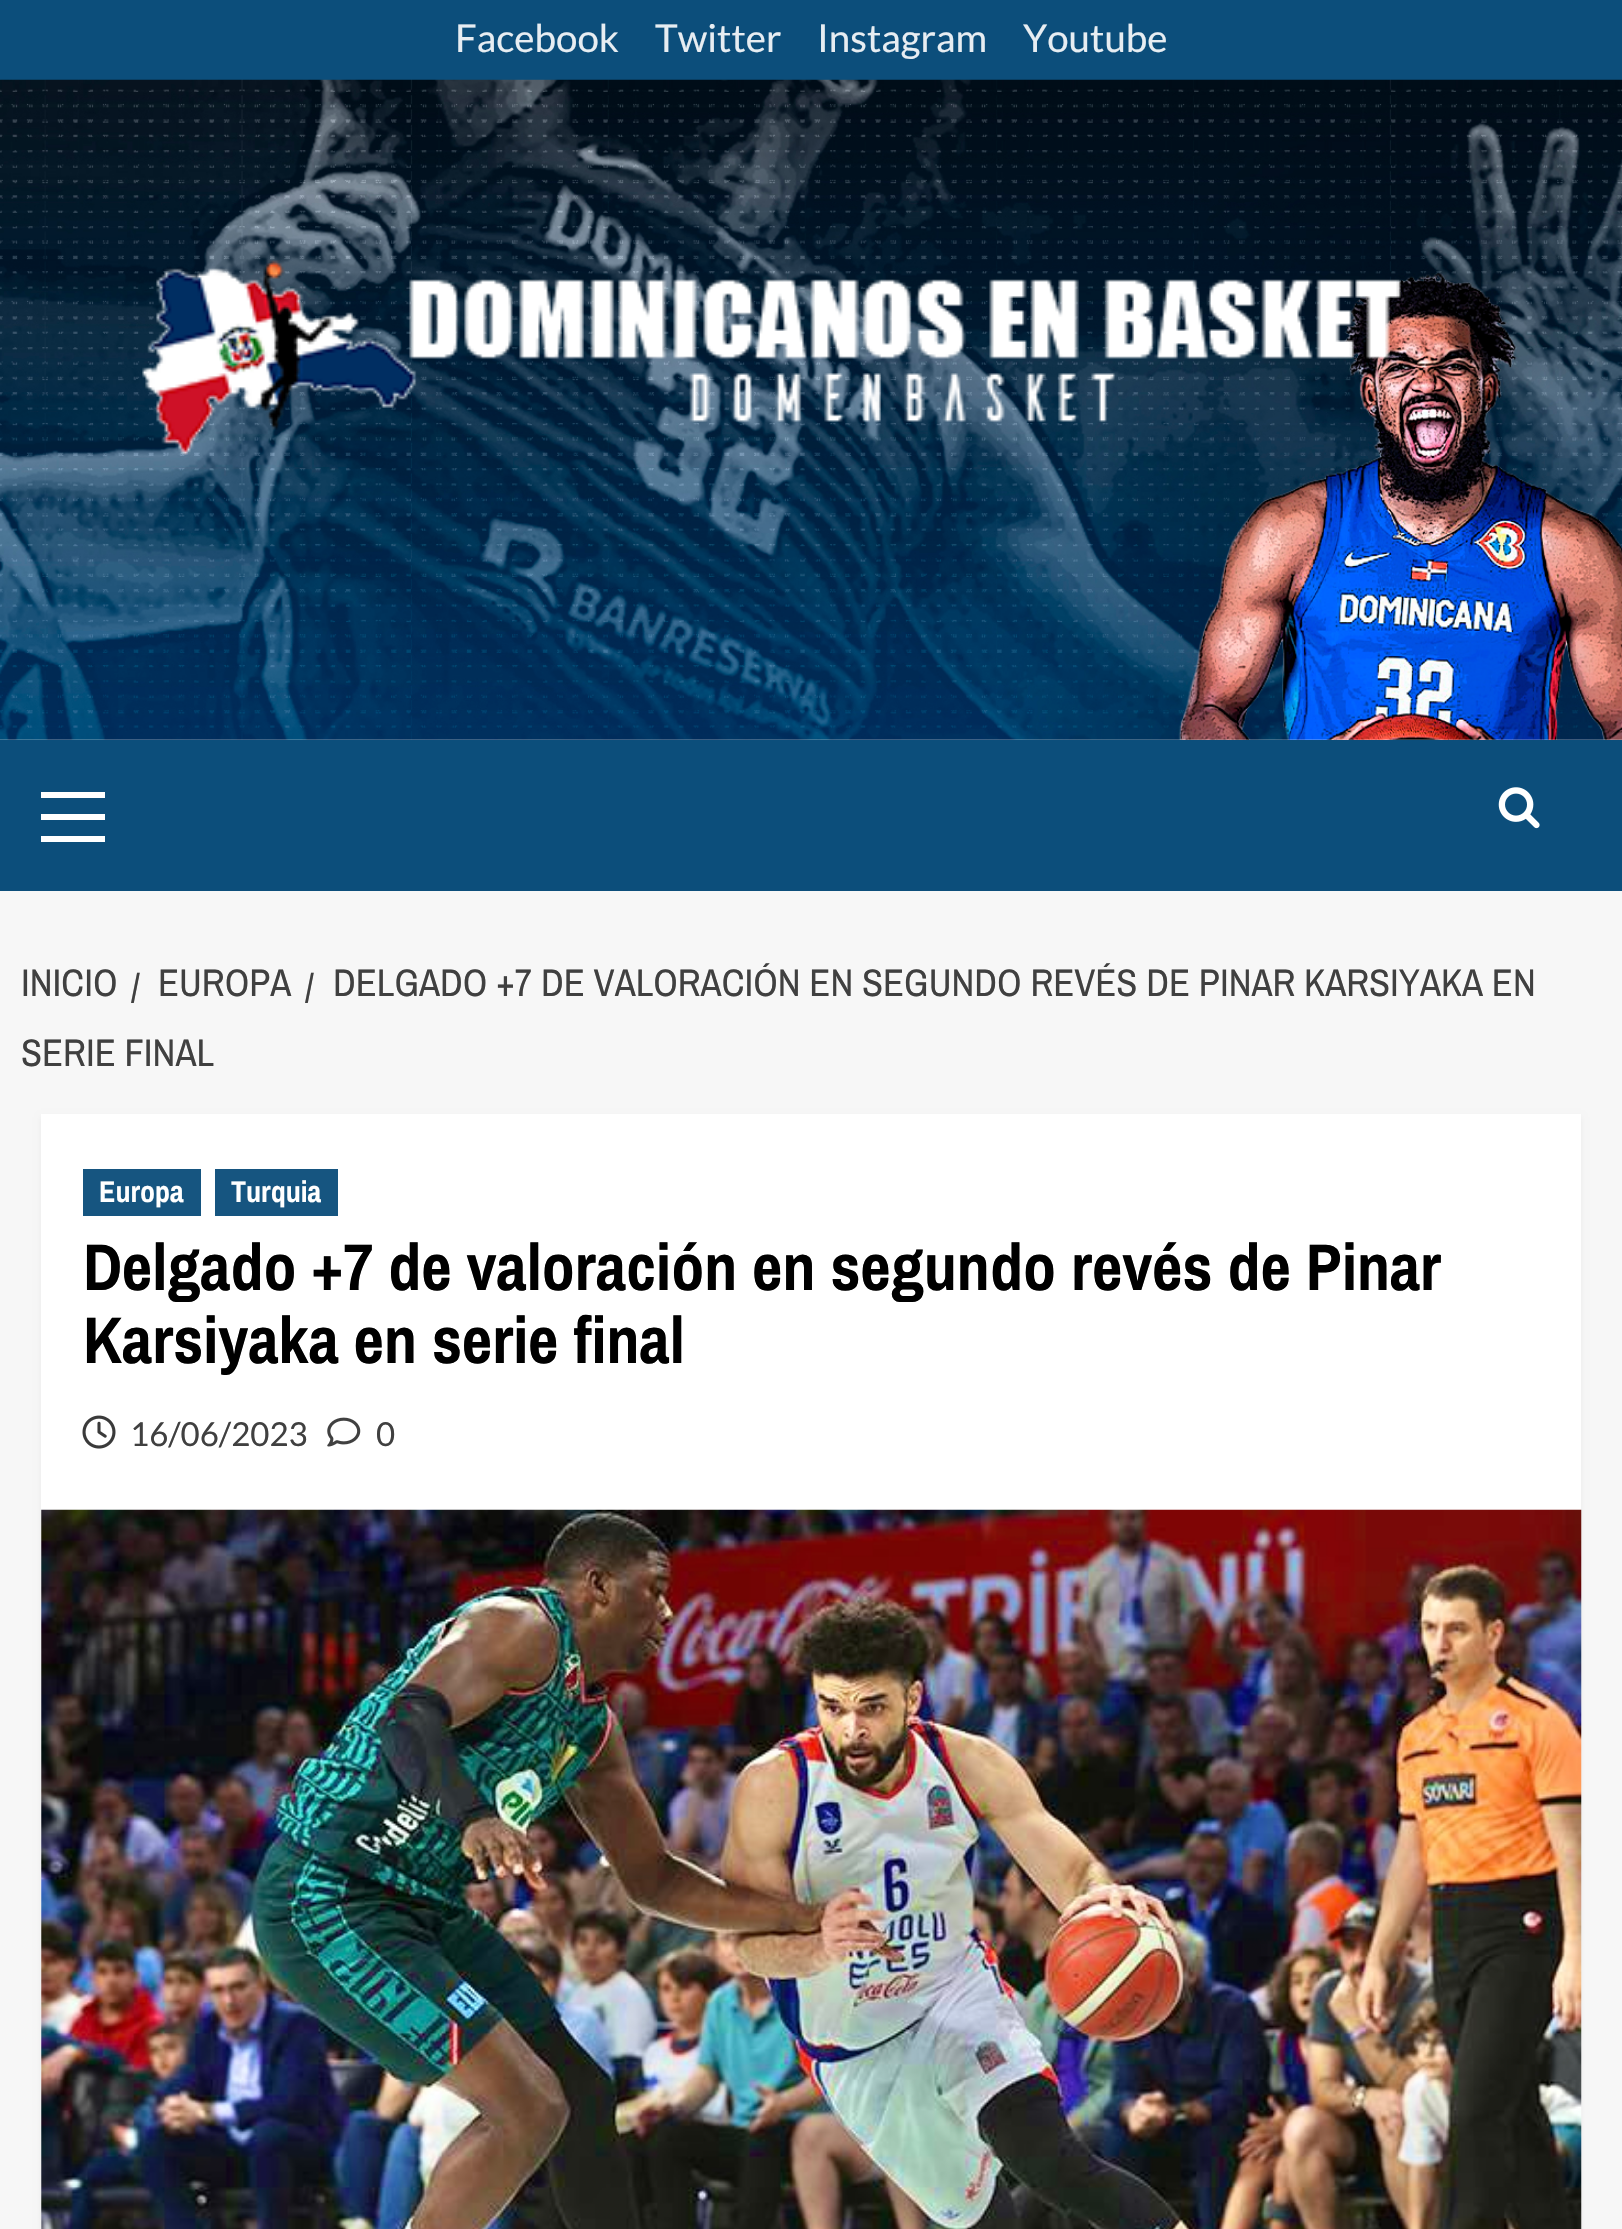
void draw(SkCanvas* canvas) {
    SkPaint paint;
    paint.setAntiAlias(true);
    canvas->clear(0xFFF7F7F7);
    paint.setColor(0xFF0C4E7B);
    canvas->drawRect(SkRect::MakeXYWH(0, 0, 1622, 80), paint);
    SkFont font1(fontMgr->matchFamilyStyle("Lato", SkFontStyle::Normal()), 38.5f);
    font1.setSubpixel(true);
    paint.setColor(0xFFE7EDF2);
    canvas->drawString("Facebook", 455, 52, font1, paint);
    canvas->drawString("Twitter", 655, 52, font1, paint);
    canvas->drawString("Instagram", 817, 52, font1, paint);
    canvas->drawString("Youtube", 1023, 52, font1, paint);
    canvas->drawImageRect(SkImages::DeferredFromEncodedData(SkData::MakeFromFileName("img1.png")), SkRect::MakeXYWH(0, 79, 1622, 661), SkSamplingOptions());
    canvas->drawImageRect(SkImages::DeferredFromEncodedData(SkData::MakeFromFileName("img2.png")), SkRect::MakeXYWH(142, 260, 1259, 195), SkSamplingOptions());
    paint.setColor(0xFF0C4E7B);
    canvas->drawRect(SkRect::MakeXYWH(0, 740, 1622, 151), paint);
    paint.setColor(0xFFFFFFFF);
    canvas->drawRect(SkRect::MakeXYWH(41, 814, 64, 6), paint);
    canvas->drawRect(SkRect::MakeXYWH(41, 792, 64, 6), paint);
    canvas->drawRect(SkRect::MakeXYWH(41, 836, 64, 6), paint);
    canvas->drawImageRect(SkImages::DeferredFromEncodedData(SkData::MakeFromFileName("img3.png")), SkRect::MakeXYWH(1498, 787, 42, 42), SkSamplingOptions());
    SkFont font2(fontMgr->matchFamilyStyle("Archivo Narrow", SkFontStyle::Normal()), 38.5f);
    font2.setSubpixel(true);
    paint.setColor(0xFF404040);
    canvas->drawString("/", 305, 1001, font2, paint);
    canvas->drawString("DELGADO +7 DE VALORACIÓN EN SEGUNDO REVÉS DE PINAR KARSIYAKA EN", 333, 996, font2, paint);
    canvas->drawString("SERIE FINAL", 21, 1066, font2, paint);
    canvas->drawString("INICIO", 21, 996, font2, paint);
    canvas->drawString("/", 131, 1001, font2, paint);
    canvas->drawString("EUROPA", 158, 996, font2, paint);
    paint.setColor(0x0D000000);
    paint.setMaskFilter(SkMaskFilter::MakeBlur(kNormal_SkBlurStyle, 3));
    canvas->drawRect(SkRect::MakeXYWH(41, 1117, 1540, 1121), paint);
    paint.setMaskFilter(nullptr);
    paint.setColor(0xFFFFFFFF);
    canvas->drawRect(SkRect::MakeXYWH(41, 1114, 1540, 1115), paint);
    paint.setColor(0xFF165580);
    canvas->drawRect(SkRect::MakeXYWH(83, 1169, 118, 47), paint);
    SkFont font3(fontMgr->matchFamilyStyle("Archivo Narrow", SkFontStyle::Bold()), 30);
    font3.setSubpixel(true);
    paint.setColor(0xFFFFFFFF);
    canvas->drawString("Europa", 99, 1202, font3, paint);
    paint.setColor(0xFF165580);
    canvas->drawRect(SkRect::MakeXYWH(215, 1169, 123, 47), paint);
    paint.setColor(0xFFFFFFFF);
    canvas->drawString("Turquia", 231, 1202, font3, paint);
    SkFont font4(fontMgr->matchFamilyStyle("Archivo Narrow", SkFontStyle::Bold()), 66);
    font4.setSubpixel(true);
    paint.setColor(0xFF000000);
    canvas->drawString("Delgado +7 de valoración en segundo revés de Pinar", 83, 1290, font4, paint);
    canvas->drawString("Karsiyaka en serie final", 83, 1363, font4, paint);
    canvas->drawImageRect(SkImages::DeferredFromEncodedData(SkData::MakeFromFileName("img4.png")), SkRect::MakeXYWH(82, 1415, 34, 34), SkSamplingOptions());
    SkFont font5(fontMgr->matchFamilyStyle("Lato", SkFontStyle::Normal()), 33);
    font5.setSubpixel(true);
    paint.setColor(0xFF404040);
    canvas->drawString("16/06/2023", 130, 1446, font5, paint);
    canvas->drawImageRect(SkImages::DeferredFromEncodedData(SkData::MakeFromFileName("img5.png")), SkRect::MakeXYWH(327, 1417, 34, 30), SkSamplingOptions());
    canvas->drawString("0", 376, 1446, font5, paint);
    canvas->drawImageRect(SkImages::DeferredFromEncodedData(SkData::MakeFromFileName("img6.png")), SkRect::MakeXYWH(41, 1509, 1541, 720), SkSamplingOptions());
}
